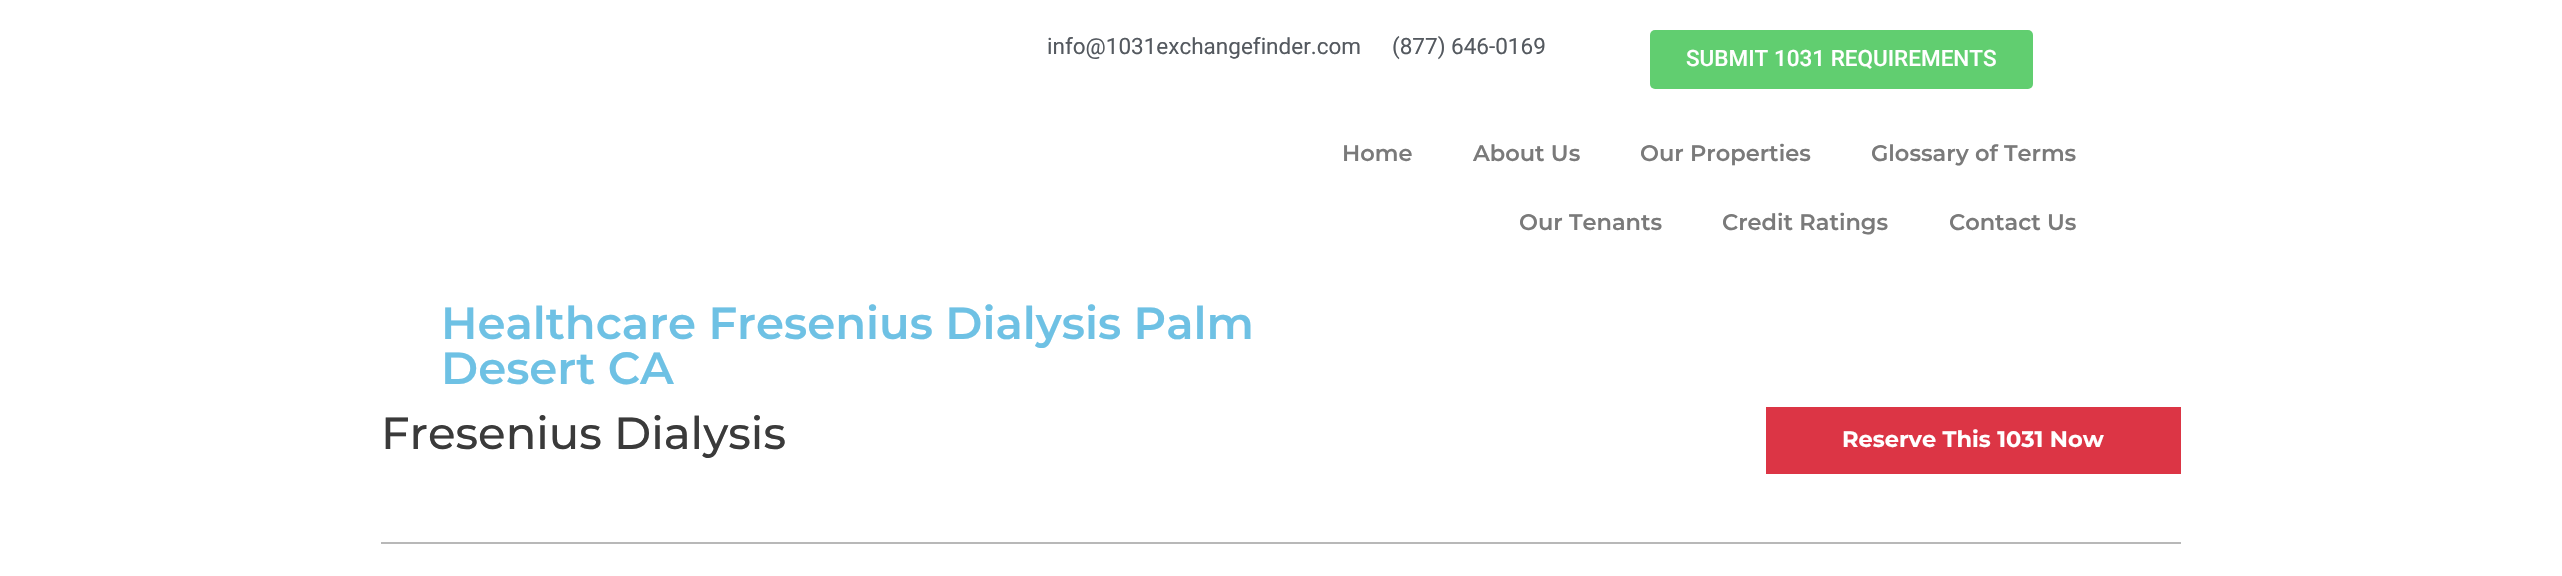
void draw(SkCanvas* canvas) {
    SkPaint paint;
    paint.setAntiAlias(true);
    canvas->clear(0xFFFFFFFF);
    SkFont font1(fontMgr->matchFamilyStyle("Roboto", SkFontStyle::Normal()), 22.5f);
    font1.setSubpixel(true);
    paint.setColor(0xFF54595F);
    canvas->drawString("info@1031exchangefinder.com", 1047, 54, font1, paint);
    canvas->drawString("(877) 646-0169", 1392, 54, font1, paint);
    paint.setColor(0xFF61CE70);
    canvas->drawRoundRect(SkRect::MakeXYWH(1650, 30, 383, 59), 5, 5, paint);
    SkFont font2(fontMgr->matchFamilyStyle("Roboto", SkFontStyle(500, SkFontStyle::kNormal_Width, SkFontStyle::kUpright_Slant)), 22.5f);
    font2.setSubpixel(true);
    paint.setColor(0xFFFFFFFF);
    canvas->drawString("SUBMIT 1031 REQUIREMENTS", 1686, 66, font2, paint);
    SkFont font3(fontMgr->matchFamilyStyle("Montserrat", SkFontStyle(600, SkFontStyle::kNormal_Width, SkFontStyle::kUpright_Slant)), 22.5f);
    font3.setSubpixel(true);
    paint.setColor(0xFF7A7A7A);
    canvas->drawString("Home", 1342, 161, font3, paint);
    canvas->drawString("About Us", 1473, 161, font3, paint);
    canvas->drawString("Our Properties", 1640, 161, font3, paint);
    canvas->drawString("Glossary of Terms", 1871, 161, font3, paint);
    canvas->drawString("Our Tenants", 1519, 230, font3, paint);
    canvas->drawString("Credit Ratings", 1722, 230, font3, paint);
    canvas->drawString("Contact Us", 1949, 230, font3, paint);
    SkFont font4(fontMgr->matchFamilyStyle("Montserrat", SkFontStyle(600, SkFontStyle::kNormal_Width, SkFontStyle::kUpright_Slant)), 45);
    font4.setSubpixel(true);
    paint.setColor(0xFF6EC1E4);
    canvas->drawString("Healthcare Fresenius Dialysis Palm", 441, 339, font4, paint);
    canvas->drawString("Desert CA", 441, 384, font4, paint);
    SkFont font5(fontMgr->matchFamilyStyle("Montserrat", SkFontStyle(500, SkFontStyle::kNormal_Width, SkFontStyle::kUpright_Slant)), 45);
    font5.setSubpixel(true);
    paint.setColor(0xFF3A3A3A);
    canvas->drawString("Fresenius Dialysis", 381, 449, font5, paint);
    paint.setColor(0xFFDC3545);
    canvas->drawRect(SkRect::MakeXYWH(1766, 407, 415, 67), paint);
    SkFont font6(fontMgr->matchFamilyStyle("Montserrat", SkFontStyle::Bold()), 22.5f);
    font6.setSubpixel(true);
    paint.setColor(0xFFFFFFFF);
    canvas->drawString("Reserve This 1031 Now", 1842, 447, font6, paint);
    paint.setColor(0xFFB8B8B8);
    canvas->drawRect(SkRect::MakeXYWH(381, 542, 1800, 2), paint);
}
